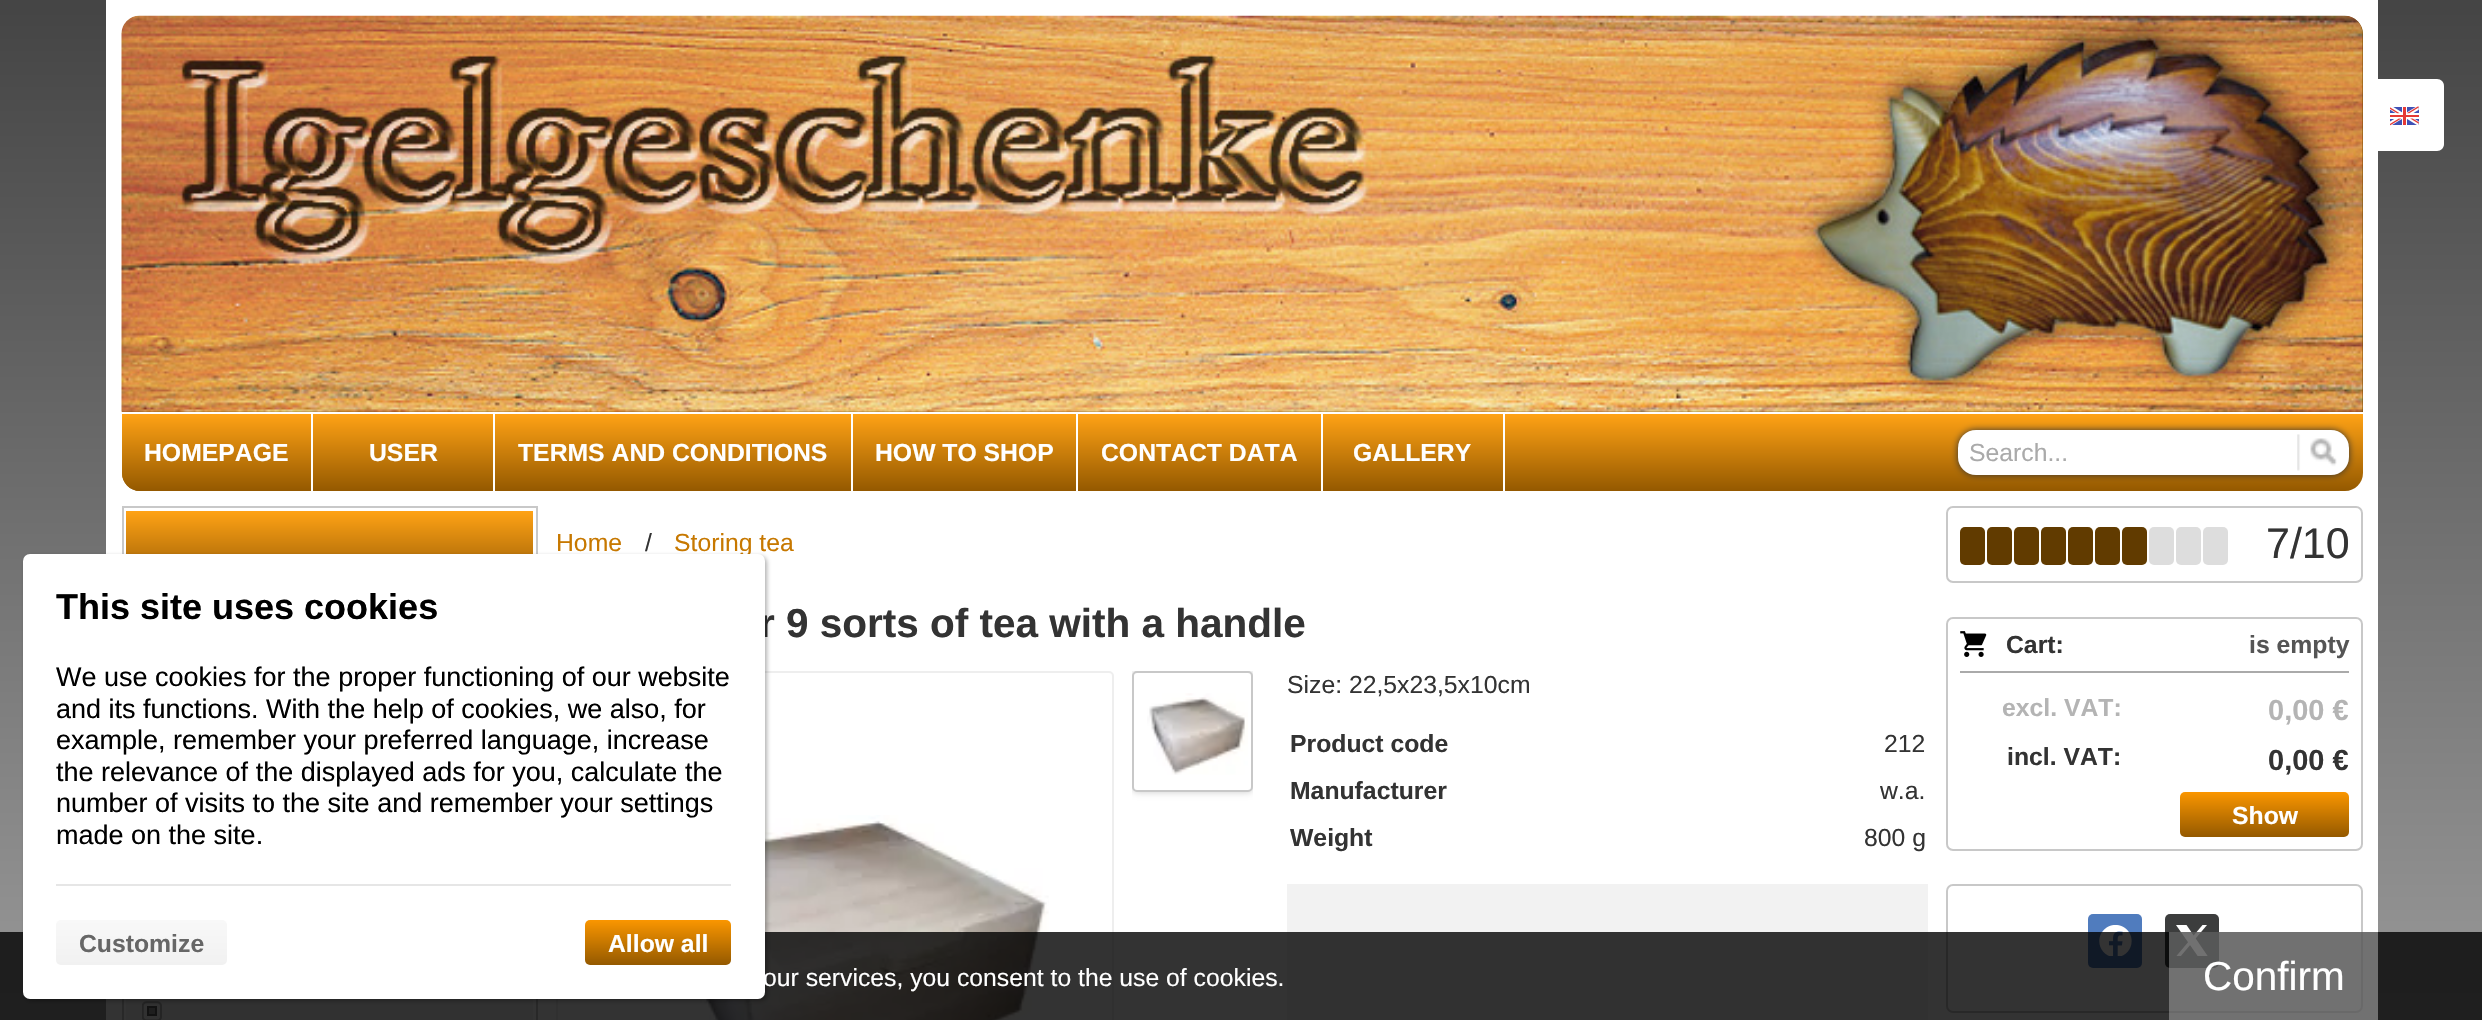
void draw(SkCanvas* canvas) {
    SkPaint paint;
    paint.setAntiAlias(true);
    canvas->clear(0xFFFFFFFF);
    canvas->drawImageRect(SkImages::DeferredFromEncodedData(SkData::MakeFromFileName("img1.png")), SkRect::MakeXYWH(0, 0, 2482, 1020), SkSamplingOptions());
    paint.setColor(0xFFFFFFFF);
    canvas->drawRect(SkRect::MakeXYWH(106, 0, 2272, 1020), paint);
    paint.setColor(0xFF7B4A00);
    canvas->drawPath(SkPathBuilder().moveTo(140, 16).lineTo(2345, 16).cubicTo(2355, 16, 2363, 24, 2363, 34).lineTo(2363, 412).lineTo(122, 412).lineTo(122, 34).cubicTo(122, 24, 130, 16, 140, 16).close().detach(), paint);
    canvas->drawImageRect(SkImages::DeferredFromEncodedData(SkData::MakeFromFileName("img2.png")), SkRect::MakeXYWH(121, 15, 2242, 397), SkSamplingOptions());
    paint.setColor(0xFFFFFFFF);
    canvas->drawPath(SkPathBuilder().moveTo(2363, 79).lineTo(2437, 79).cubicTo(2441, 79, 2444, 82, 2444, 86).lineTo(2444, 144).cubicTo(2444, 148, 2441, 151, 2437, 151).lineTo(2363, 151).close().detach(), paint);
    canvas->drawImageRect(SkImages::DeferredFromEncodedData(SkData::MakeFromFileName("img3.png")), SkRect::MakeXYWH(2390, 106, 29, 20), SkSamplingOptions());
    {
        const SkColor colors[] = {0xFFFFA215, 0xFF945900};
        const float stops[] = {0, 1};
        const SkPoint ends[] = {{1242, 414}, {1242, 491}};
        paint.setShader(SkGradientShader::MakeLinear(ends, colors, stops, 2, SkTileMode::kClamp));
        paint.setAlpha(255);
    }
    canvas->drawPath(SkPathBuilder().moveTo(122, 414).lineTo(2363, 414).lineTo(2363, 473).cubicTo(2363, 483, 2355, 491, 2345, 491).lineTo(140, 491).cubicTo(130, 491, 122, 483, 122, 473).close().detach(), paint);
    paint.setShader(nullptr);
    paint.setColor(0xFFFFFFFF);
    canvas->drawRect(SkRect::MakeXYWH(311, 414, 2, 77), paint);
    {
        const SkColor colors[] = {0xFFFFA215, 0xFF945900};
        const float stops[] = {0, 1};
        const SkPoint ends[] = {{216, 414}, {216, 491}};
        paint.setShader(SkGradientShader::MakeLinear(ends, colors, stops, 2, SkTileMode::kClamp));
        paint.setAlpha(255);
    }
    canvas->drawPath(SkPathBuilder().moveTo(122, 414).lineTo(311, 414).lineTo(311, 491).lineTo(140, 491).cubicTo(130, 491, 122, 483, 122, 473).close().detach(), paint);
    SkFont font1(fontMgr->matchFamilyStyle("Liberation Sans", SkFontStyle::Bold()), 24.75f);
    font1.setSubpixel(true);
    paint.setShader(nullptr);
    paint.setColor(0xFFFFFFFF);
    canvas->drawString("HOMEPAGE", 144, 461, font1, paint);
    canvas->drawRect(SkRect::MakeXYWH(493, 414, 2, 77), paint);
    canvas->drawString("USER", 369, 461, font1, paint);
    canvas->drawRect(SkRect::MakeXYWH(851, 414, 2, 77), paint);
    canvas->drawString("TERMS AND CONDITIONS", 518, 461, font1, paint);
    canvas->drawRect(SkRect::MakeXYWH(1076, 414, 2, 77), paint);
    canvas->drawString("HOW TO SHOP", 875, 461, font1, paint);
    canvas->drawRect(SkRect::MakeXYWH(1321, 414, 2, 77), paint);
    canvas->drawString("CONTACT DATA", 1101, 461, font1, paint);
    canvas->drawRect(SkRect::MakeXYWH(1503, 414, 2, 77), paint);
    canvas->drawString("GALLERY", 1353, 461, font1, paint);
    paint.setColor(0xFF333333);
    paint.setMaskFilter(SkMaskFilter::MakeBlur(kNormal_SkBlurStyle, 3.5f));
    canvas->drawRoundRect(SkRect::MakeXYWH(1958, 430, 391, 45), 18, 18, paint);
    paint.setMaskFilter(nullptr);
    paint.setColor(0xFFFFFFFF);
    canvas->drawRoundRect(SkRect::MakeXYWH(1958, 430, 391, 45), 18, 18, paint);
    canvas->drawImageRect(SkImages::DeferredFromEncodedData(SkData::MakeFromFileName("img4.png")), SkRect::MakeXYWH(2297, 434, 40, 37), SkSamplingOptions());
    SkFont font2(fontMgr->matchFamilyStyle("Liberation Sans", SkFontStyle::Normal()), 24.75f);
    font2.setSubpixel(true);
    paint.setColor(0xFFAAAAAA);
    canvas->drawString("Search...", 1969, 461, font2, paint);
    paint.setColor(0xFFC8C8C8);
    canvas->drawRect(SkRect::MakeXYWH(122, 506, 416, 2), paint);
    canvas->drawRect(SkRect::MakeXYWH(536, 506, 2, 48), paint);
    canvas->drawRect(SkRect::MakeXYWH(122, 506, 2, 48), paint);
    {
        const SkColor colors[] = {0xFFFFA215, 0xFF7B4A00};
        const float stops[] = {0, 1};
        const SkPoint ends[] = {{330, 511}, {330, 601}};
        paint.setShader(SkGradientShader::MakeLinear(ends, colors, stops, 2, SkTileMode::kClamp));
        paint.setAlpha(255);
    }
    canvas->drawRect(SkRect::MakeXYWH(126, 511, 407, 43), paint);
    paint.setShader(nullptr);
    paint.setColor(0xFFC8C8C8);
    canvas->drawPath(SkPathBuilder(SkPathFillType::kEvenOdd).moveTo(122, 601).lineTo(538, 601).lineTo(538, 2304).cubicTo(538, 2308, 535, 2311, 531, 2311).lineTo(128, 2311).cubicTo(125, 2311, 122, 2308, 122, 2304).close().moveTo(124, 601).lineTo(536, 601).lineTo(536, 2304).cubicTo(536, 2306, 533, 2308, 531, 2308).lineTo(128, 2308).cubicTo(126, 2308, 124, 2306, 124, 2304).close().detach(), paint);
    paint.setColor(0xFFF5F5F5);
    canvas->drawRect(SkRect::MakeXYWH(126, 999, 407, 21), paint);
    canvas->drawImageRect(SkImages::DeferredFromEncodedData(SkData::MakeFromFileName("img5.png")), SkRect::MakeXYWH(142, 1001, 20, 19), SkSamplingOptions());
    paint.setColor(0xFFC77800);
    canvas->drawString("Home", 556, 551, font2, paint);
    paint.setColor(0xFF333333);
    canvas->drawString("/", 645, 551, font2, paint);
    paint.setColor(0xFFC77800);
    canvas->drawString("Storing tea", 674, 551, font2, paint);
    SkFont font3(fontMgr->matchFamilyStyle("Liberation Sans", SkFontStyle::Bold()), 40.5f);
    font3.setSubpixel(true);
    paint.setColor(0xFF333333);
    canvas->drawString("r 9 sorts of tea with a handle", 759, 637, font3, paint);
    paint.setStyle(SkPaint::kStroke_Style);
    paint.setStrokeWidth(2);
    paint.setColor(0xFFEEEEEE);
    canvas->drawRoundRect(SkRect::MakeXYWH(557, 672, 556, 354), 4, 4, paint);
    canvas->drawImageRect(SkImages::DeferredFromEncodedData(SkData::MakeFromFileName("img6.png")), SkRect::MakeXYWH(663, 815, 386, 205), SkSamplingOptions());
    canvas->save();
    canvas->clipRect(SkRect::MakeXYWH(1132, 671, 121, 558));
    paint.setStyle(SkPaint::kFill_Style);
    paint.setColor(0xFFCCCCCC);
    paint.setMaskFilter(SkMaskFilter::MakeBlur(kNormal_SkBlurStyle, 3.5f));
    canvas->drawRoundRect(SkRect::MakeXYWH(1132, 671, 121, 121), 5, 5, paint);
    paint.setMaskFilter(nullptr);
    canvas->restore();
    paint.setColor(0xFFFFFFFF);
    canvas->drawRoundRect(SkRect::MakeXYWH(1133, 672, 119, 119), 4, 4, paint);
    paint.setStyle(SkPaint::kStroke_Style);
    paint.setColor(0xFFC8C8C8);
    canvas->drawRoundRect(SkRect::MakeXYWH(1133, 672, 119, 119), 4, 4, paint);
    canvas->drawImageRect(SkImages::DeferredFromEncodedData(SkData::MakeFromFileName("img7.png")), SkRect::MakeXYWH(1147, 693, 101, 82), SkSamplingOptions());
    paint.setStyle(SkPaint::kFill_Style);
    paint.setColor(0xFF333333);
    canvas->drawString("Size: 22,5x23,5x10cm", 1287, 693, font2, paint);
    canvas->drawString("Product code", 1290, 752, font1, paint);
    canvas->drawString("212", 1884, 752, font2, paint);
    canvas->drawString("Manufacturer", 1290, 799, font1, paint);
    canvas->drawString("w.a.", 1880, 799, font2, paint);
    canvas->drawString("Weight", 1290, 846, font1, paint);
    canvas->drawString("800 g", 1864, 846, font2, paint);
    paint.setColor(0xFFF2F2F2);
    canvas->drawRect(SkRect::MakeXYWH(1287, 884, 641, 136), paint);
    paint.setStyle(SkPaint::kStroke_Style);
    paint.setColor(0xFFC8C8C8);
    canvas->drawRoundRect(SkRect::MakeXYWH(1947, 507, 415, 75), 6, 6, paint);
    paint.setStyle(SkPaint::kFill_Style);
    paint.setColor(0xFF613B00);
    canvas->drawRoundRect(SkRect::MakeXYWH(1960, 527, 25, 38), 5, 5, paint);
    canvas->drawRoundRect(SkRect::MakeXYWH(1987, 527, 25, 38), 5, 5, paint);
    canvas->drawRoundRect(SkRect::MakeXYWH(2014, 527, 25, 38), 5, 5, paint);
    canvas->drawRoundRect(SkRect::MakeXYWH(2041, 527, 25, 38), 5, 5, paint);
    canvas->drawRoundRect(SkRect::MakeXYWH(2068, 527, 25, 38), 5, 5, paint);
    canvas->drawRoundRect(SkRect::MakeXYWH(2095, 527, 25, 38), 5, 5, paint);
    canvas->drawRoundRect(SkRect::MakeXYWH(2122, 527, 25, 38), 5, 5, paint);
    paint.setColor(0xFFDDDDDD);
    canvas->drawRoundRect(SkRect::MakeXYWH(2149, 527, 25, 38), 5, 5, paint);
    canvas->drawRoundRect(SkRect::MakeXYWH(2176, 527, 25, 38), 5, 5, paint);
    canvas->drawRoundRect(SkRect::MakeXYWH(2203, 527, 25, 38), 5, 5, paint);
    SkFont font4(fontMgr->matchFamilyStyle("Liberation Sans", SkFontStyle::Normal()), 43);
    font4.setSubpixel(true);
    paint.setColor(0xFF333333);
    canvas->drawString("7/10", 2266, 558, font4, paint);
    paint.setStyle(SkPaint::kStroke_Style);
    paint.setColor(0xFFC8C8C8);
    canvas->drawRoundRect(SkRect::MakeXYWH(1947, 618, 415, 232), 6, 6, paint);
    paint.setStyle(SkPaint::kFill_Style);
    paint.setColor(0xFFAAAAAA);
    canvas->drawRect(SkRect::MakeXYWH(1960, 671, 389, 2), paint);
    canvas->drawImageRect(SkImages::DeferredFromEncodedData(SkData::MakeFromFileName("img8.png")), SkRect::MakeXYWH(1960, 631, 27, 26), SkSamplingOptions());
    paint.setColor(0xFF333333);
    canvas->drawString("Cart:", 2006, 653, font1, paint);
    paint.setColor(0xFF555555);
    canvas->drawString("is empty", 2249, 653, font1, paint);
    paint.setColor(0xFFB4B4B4);
    canvas->drawString("excl. VAT:", 2002, 716, font1, paint);
    SkFont font5(fontMgr->matchFamilyStyle("Liberation Sans", SkFontStyle::Bold()), 29);
    font5.setSubpixel(true);
    canvas->drawString("0,00 €", 2268, 720, font5, paint);
    paint.setColor(0xFF333333);
    canvas->drawString("incl. VAT:", 2007, 765, font1, paint);
    canvas->drawString("0,00 €", 2268, 770, font5, paint);
    {
        const SkColor colors[] = {0xFFFA9600, 0xFF945900};
        const float stops[] = {0, 1};
        const SkPoint ends[] = {{2265, 792}, {2265, 837}};
        paint.setShader(SkGradientShader::MakeLinear(ends, colors, stops, 2, SkTileMode::kClamp));
        paint.setAlpha(255);
    }
    canvas->drawRoundRect(SkRect::MakeXYWH(2180, 792, 169, 45), 5, 5, paint);
    paint.setShader(nullptr);
    paint.setColor(0xFFFFFFFF);
    canvas->drawString("Show", 2232, 824, font1, paint);
    paint.setStyle(SkPaint::kStroke_Style);
    paint.setColor(0xFFC8C8C8);
    canvas->drawRoundRect(SkRect::MakeXYWH(1947, 885, 415, 127), 6, 6, paint);
    paint.setStyle(SkPaint::kFill_Style);
    paint.setColor(0xFF507CBE);
    canvas->drawRoundRect(SkRect::MakeXYWH(2088, 914, 54, 54), 5, 5, paint);
    canvas->drawImageRect(SkImages::DeferredFromEncodedData(SkData::MakeFromFileName("img9.png")), SkRect::MakeXYWH(2099, 925, 33, 31), SkSamplingOptions());
    paint.setColor(0xFF3C3D3D);
    canvas->drawRoundRect(SkRect::MakeXYWH(2165, 914, 54, 54), 5, 5, paint);
    canvas->save();
    canvas->clipRect(SkRect::MakeXYWH(2176, 925, 34, 31));
    paint.setColor(0xFFFFFFFF);
    canvas->drawPath(SkPathBuilder(SkPathFillType::kEvenOdd).moveTo(2202.5f, 925).lineTo(2176, 956.5f).lineTo(2180.5f, 956.5f).lineTo(2207, 925).close().detach(), paint);
    canvas->drawPath(SkPathBuilder(SkPathFillType::kEvenOdd).moveTo(2186.5f, 925).lineTo(2176, 925).lineTo(2198, 956.5f).lineTo(2208, 956.5f).close().detach(), paint);
    canvas->restore();
    paint.setColor(0xCC000000);
    canvas->drawRect(SkRect::MakeXYWH(0, 932, 2482, 88), paint);
    paint.setColor(0x4D000000);
    paint.setMaskFilter(SkMaskFilter::MakeBlur(kNormal_SkBlurStyle, 2));
    canvas->drawRoundRect(SkRect::MakeXYWH(25, 556, 742, 445), 7, 7, paint);
    paint.setMaskFilter(nullptr);
    paint.setColor(0xFFFFFFFF);
    canvas->drawRoundRect(SkRect::MakeXYWH(23, 554, 742, 445), 7, 7, paint);
    SkFont font6(fontMgr->matchFamilyStyle("Liberation Sans", SkFontStyle::Bold()), 36);
    font6.setSubpixel(true);
    paint.setColor(0xFF000000);
    canvas->drawString("This site uses cookies", 56, 619, font6, paint);
    SkFont font7(fontMgr->matchFamilyStyle("Liberation Sans", SkFontStyle::Normal()), 27);
    font7.setSubpixel(true);
    canvas->drawString("We use cookies for the proper functioning of our website", 56, 686, font7, paint);
    canvas->drawString("and its functions. With the help of cookies, we also, for", 56, 718, font7, paint);
    canvas->drawString("example, remember your preferred language, increase", 56, 749, font7, paint);
    canvas->drawString("the relevance of the displayed ads for you, calculate the", 56, 781, font7, paint);
    canvas->drawString("number of visits to the site and remember your settings", 56, 812, font7, paint);
    canvas->drawString("made on the site.", 56, 844, font7, paint);
    paint.setColor(0xFFE6E6E6);
    canvas->drawRect(SkRect::MakeXYWH(56, 884, 675, 2), paint);
    {
        const SkColor colors[] = {0xFFF8F8F8, 0xFFF1F1F1};
        const float stops[] = {0, 1};
        const SkPoint ends[] = {{142, 920}, {142, 965}};
        paint.setShader(SkGradientShader::MakeLinear(ends, colors, stops, 2, SkTileMode::kClamp));
        paint.setAlpha(255);
    }
    canvas->drawRoundRect(SkRect::MakeXYWH(56, 920, 171, 45), 5, 5, paint);
    paint.setShader(nullptr);
    paint.setColor(0xFF666666);
    canvas->drawString("Customize", 79, 952, font1, paint);
    {
        const SkColor colors[] = {0xFFFA9600, 0xFF945900};
        const float stops[] = {0, 1};
        const SkPoint ends[] = {{658, 920}, {658, 965}};
        paint.setShader(SkGradientShader::MakeLinear(ends, colors, stops, 2, SkTileMode::kClamp));
        paint.setAlpha(255);
    }
    canvas->drawRoundRect(SkRect::MakeXYWH(585, 920, 146, 45), 5, 5, paint);
    paint.setShader(nullptr);
    paint.setColor(0xFFFFFFFF);
    canvas->drawString("Allow all", 608, 952, font1, paint);
    canvas->drawString("our services, you consent to the use of cookies.", 763, 986, font2, paint);
    paint.setColor(0x4DFFFFFF);
    canvas->drawRect(SkRect::MakeXYWH(2169, 932, 209, 88), paint);
    SkFont font8(fontMgr->matchFamilyStyle("Liberation Sans", SkFontStyle::Normal()), 40.5f);
    font8.setSubpixel(true);
    paint.setColor(0xFFFFFFFF);
    canvas->drawString("Confirm", 2203, 990, font8, paint);
}
